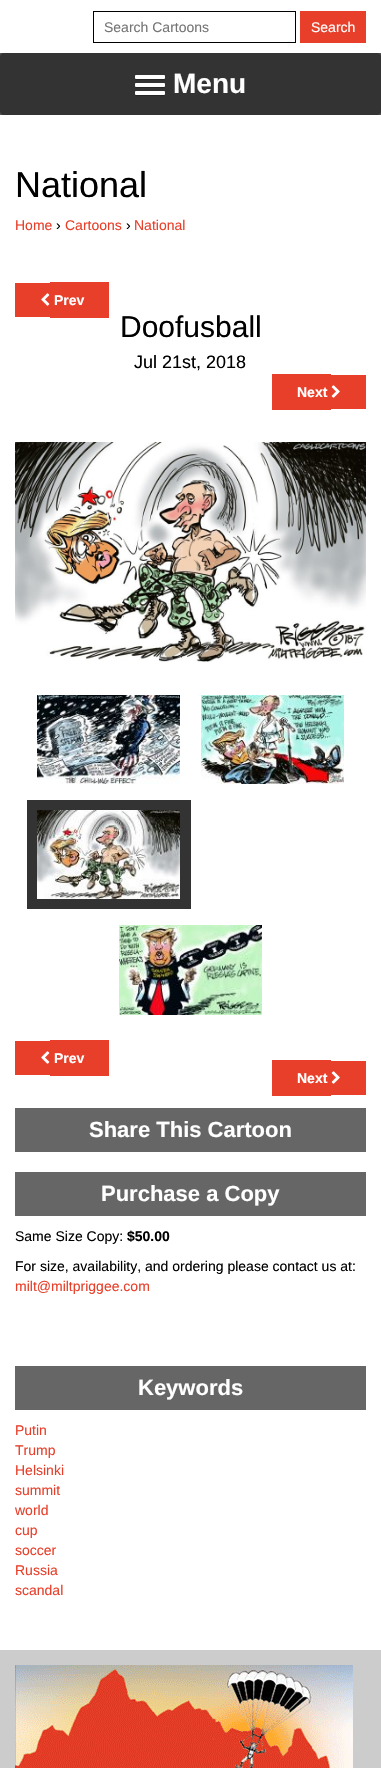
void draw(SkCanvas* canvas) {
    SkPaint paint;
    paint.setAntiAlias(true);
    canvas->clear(0xFFCCCCCC);
    paint.setColor(0xFFFFFFFF);
    canvas->drawRect(SkRect::MakeXYWH(0, 0, 381, 1650), paint);
    paint.setStyle(SkPaint::kStroke_Style);
    paint.setStrokeWidth(1);
    paint.setColor(0xFF000000);
    canvas->drawRect(SkRect::MakeXYWH(93.5f, 11.5f, 202, 31), paint);
    SkFont font1(fontMgr->matchFamilyStyle("Liberation Sans", SkFontStyle::Normal()), 14);
    font1.setSubpixel(true);
    paint.setStyle(SkPaint::kFill_Style);
    paint.setColor(0xFF757575);
    canvas->drawString("Search Cartoons", 104, 32, font1, paint);
    paint.setColor(0xFFE73F2A);
    canvas->drawRect(SkRect::MakeXYWH(300, 11, 66, 32), paint);
    paint.setColor(0xFFFFFFFF);
    canvas->drawString("Search", 311, 32, font1, paint);
    paint.setColor(0xFF555555);
    canvas->drawRect(SkRect::MakeXYWH(0, 53, 381, 62), paint);
    paint.setColor(0xFF333333);
    canvas->drawRoundRect(SkRect::MakeXYWH(0, 53, 381, 62), 4, 4, paint);
    paint.setColor(0xFF262626);
    canvas->drawPath(SkPathBuilder().moveTo(135, 78).cubicTo(135, 81.5f, 137.5f, 80, 140.5f, 80).lineTo(159.5f, 80).cubicTo(162.5f, 80, 165, 81.5f, 165, 78).lineTo(164.5f, 79).lineTo(135.5f, 79).close().detach(), paint);
    paint.setColor(0xFFFFFFFF);
    canvas->drawRoundRect(SkRect::MakeXYWH(135, 75, 30, 4), 1, 1, paint);
    paint.setColor(0xFF262626);
    canvas->drawPath(SkPathBuilder().moveTo(135, 86).cubicTo(135, 89.5f, 137.5f, 88, 140.5f, 88).lineTo(159.5f, 88).cubicTo(162.5f, 88, 165, 89.5f, 165, 86).lineTo(164.5f, 87).lineTo(135.5f, 87).close().detach(), paint);
    paint.setColor(0xFFFFFFFF);
    canvas->drawRoundRect(SkRect::MakeXYWH(135, 83, 30, 4), 1, 1, paint);
    paint.setColor(0xFF262626);
    canvas->drawPath(SkPathBuilder().moveTo(135, 94).cubicTo(135, 97.5f, 137.5f, 96, 140.5f, 96).lineTo(159.5f, 96).cubicTo(162.5f, 96, 165, 97.5f, 165, 94).lineTo(164.5f, 95).lineTo(135.5f, 95).close().detach(), paint);
    paint.setColor(0xFFFFFFFF);
    canvas->drawRoundRect(SkRect::MakeXYWH(135, 91, 30, 4), 1, 1, paint);
    SkFont font2(fontMgr->matchFamilyStyle("Liberation Sans", SkFontStyle::Bold()), 28);
    font2.setSubpixel(true);
    canvas->drawString("Menu", 173, 93, font2, paint);
    SkFont font3(fontMgr->matchFamilyStyle("Liberation Sans", SkFontStyle::Normal()), 36);
    font3.setSubpixel(true);
    paint.setColor(0xFF000000);
    canvas->drawString("National", 15, 197, font3, paint);
    paint.setColor(0xFFE73F2A);
    canvas->drawString("Home", 15, 230, font1, paint);
    paint.setColor(0xFF000000);
    canvas->drawString("›", 56, 230, font1, paint);
    paint.setColor(0xFFE73F2A);
    canvas->drawString("Cartoons", 65, 230, font1, paint);
    paint.setColor(0xFF000000);
    canvas->drawString("›", 126, 230, font1, paint);
    paint.setColor(0xFFE73F2A);
    canvas->drawString("National", 134, 230, font1, paint);
    canvas->drawRect(SkRect::MakeXYWH(15, 283, 35, 34), paint);
    canvas->drawRect(SkRect::MakeXYWH(50, 282, 59, 36), paint);
    canvas->drawImageRect(SkImages::DeferredFromEncodedData(SkData::MakeFromFileName("img1.png")), SkRect::MakeXYWH(41, 293, 9, 13), SkSamplingOptions());
    SkFont font4(fontMgr->matchFamilyStyle("Liberation Sans", SkFontStyle::Bold()), 14);
    font4.setSubpixel(true);
    paint.setColor(0xFFFFFFFF);
    canvas->drawString("Prev", 54, 305, font4, paint);
    SkFont font5(fontMgr->matchFamilyStyle("Liberation Sans", SkFontStyle::Normal()), 30);
    font5.setSubpixel(true);
    paint.setColor(0xFF000000);
    canvas->drawString("Doofusball", 120, 337, font5, paint);
    SkFont font6(fontMgr->matchFamilyStyle("Liberation Sans", SkFontStyle::Normal()), 18);
    font6.setSubpixel(true);
    canvas->drawString("Jul 21st, 2018", 134, 368, font6, paint);
    paint.setColor(0xFFE73F2A);
    canvas->drawRect(SkRect::MakeXYWH(272, 374, 59, 36), paint);
    canvas->drawRect(SkRect::MakeXYWH(331, 375, 35, 34), paint);
    paint.setColor(0xFFFFFFFF);
    canvas->drawString("Next", 297, 397, font4, paint);
    canvas->drawImageRect(SkImages::DeferredFromEncodedData(SkData::MakeFromFileName("img2.png")), SkRect::MakeXYWH(331, 385, 9, 13), SkSamplingOptions());
    canvas->drawImageRect(SkImages::DeferredFromEncodedData(SkData::MakeFromFileName("img3.png")), SkRect::MakeXYWH(15, 442, 351, 220), SkSamplingOptions());
    canvas->drawImageRect(SkImages::DeferredFromEncodedData(SkData::MakeFromFileName("img4.png")), SkRect::MakeXYWH(37, 695, 143, 89), SkSamplingOptions());
    canvas->drawImageRect(SkImages::DeferredFromEncodedData(SkData::MakeFromFileName("img5.png")), SkRect::MakeXYWH(201, 695, 143, 89), SkSamplingOptions());
    paint.setColor(0xFF333333);
    canvas->drawRect(SkRect::MakeXYWH(27, 800, 164, 109), paint);
    canvas->drawImageRect(SkImages::DeferredFromEncodedData(SkData::MakeFromFileName("img6.png")), SkRect::MakeXYWH(37, 810, 143, 89), SkSamplingOptions());
    canvas->drawImageRect(SkImages::DeferredFromEncodedData(SkData::MakeFromFileName("img7.png")), SkRect::MakeXYWH(119, 925, 143, 90), SkSamplingOptions());
    paint.setColor(0xFFE73F2A);
    canvas->drawRect(SkRect::MakeXYWH(15, 1041, 35, 34), paint);
    canvas->drawRect(SkRect::MakeXYWH(50, 1040, 59, 36), paint);
    canvas->drawImageRect(SkImages::DeferredFromEncodedData(SkData::MakeFromFileName("img1.png")), SkRect::MakeXYWH(41, 1051, 9, 13), SkSamplingOptions());
    paint.setColor(0xFFFFFFFF);
    canvas->drawString("Prev", 54, 1063, font4, paint);
    paint.setColor(0xFFE73F2A);
    canvas->drawRect(SkRect::MakeXYWH(272, 1060, 59, 36), paint);
    canvas->drawRect(SkRect::MakeXYWH(331, 1061, 35, 34), paint);
    paint.setColor(0xFFFFFFFF);
    canvas->drawString("Next", 297, 1083, font4, paint);
    canvas->drawImageRect(SkImages::DeferredFromEncodedData(SkData::MakeFromFileName("img2.png")), SkRect::MakeXYWH(331, 1071, 9, 13), SkSamplingOptions());
    paint.setColor(0xFF666666);
    canvas->drawRect(SkRect::MakeXYWH(15, 1108, 351, 44), paint);
    SkFont font7(fontMgr->matchFamilyStyle("Liberation Sans", SkFontStyle::Bold()), 22);
    font7.setSubpixel(true);
    paint.setColor(0xFFFFFFFF);
    canvas->drawString("Share This Cartoon", 89, 1137, font7, paint);
    paint.setColor(0xFF666666);
    canvas->drawRect(SkRect::MakeXYWH(15, 1172, 351, 44), paint);
    paint.setColor(0xFFFFFFFF);
    canvas->drawString("Purchase a Copy", 101, 1201, font7, paint);
    paint.setColor(0xFF000000);
    canvas->drawString("Same Size Copy:", 15, 1241, font1, paint);
    canvas->drawString("$50.00", 127, 1241, font4, paint);
    canvas->drawString("For size, availability, and ordering please contact us at:", 15, 1271, font1, paint);
    paint.setColor(0xFFE73F2A);
    canvas->drawString("milt@miltpriggee.com", 15, 1291, font1, paint);
    paint.setColor(0xFF666666);
    canvas->drawRect(SkRect::MakeXYWH(15, 1366, 351, 44), paint);
    paint.setColor(0xFFFFFFFF);
    canvas->drawString("Keywords", 138, 1395, font7, paint);
    paint.setColor(0xFFE73F2A);
    canvas->drawString("Putin", 15, 1435, font1, paint);
    canvas->drawString("Trump", 15, 1455, font1, paint);
    canvas->drawString("Helsinki", 15, 1475, font1, paint);
    canvas->drawString("summit", 15, 1495, font1, paint);
    canvas->drawString("world", 15, 1515, font1, paint);
    canvas->drawString("cup", 15, 1535, font1, paint);
    canvas->drawString("soccer", 15, 1555, font1, paint);
    canvas->drawString("Russia", 15, 1575, font1, paint);
    canvas->drawString("scandal", 15, 1595, font1, paint);
    canvas->drawImageRect(SkImages::DeferredFromEncodedData(SkData::MakeFromFileName("img8.png")), SkRect::MakeXYWH(15, 1665, 338, 103), SkSamplingOptions());
}
